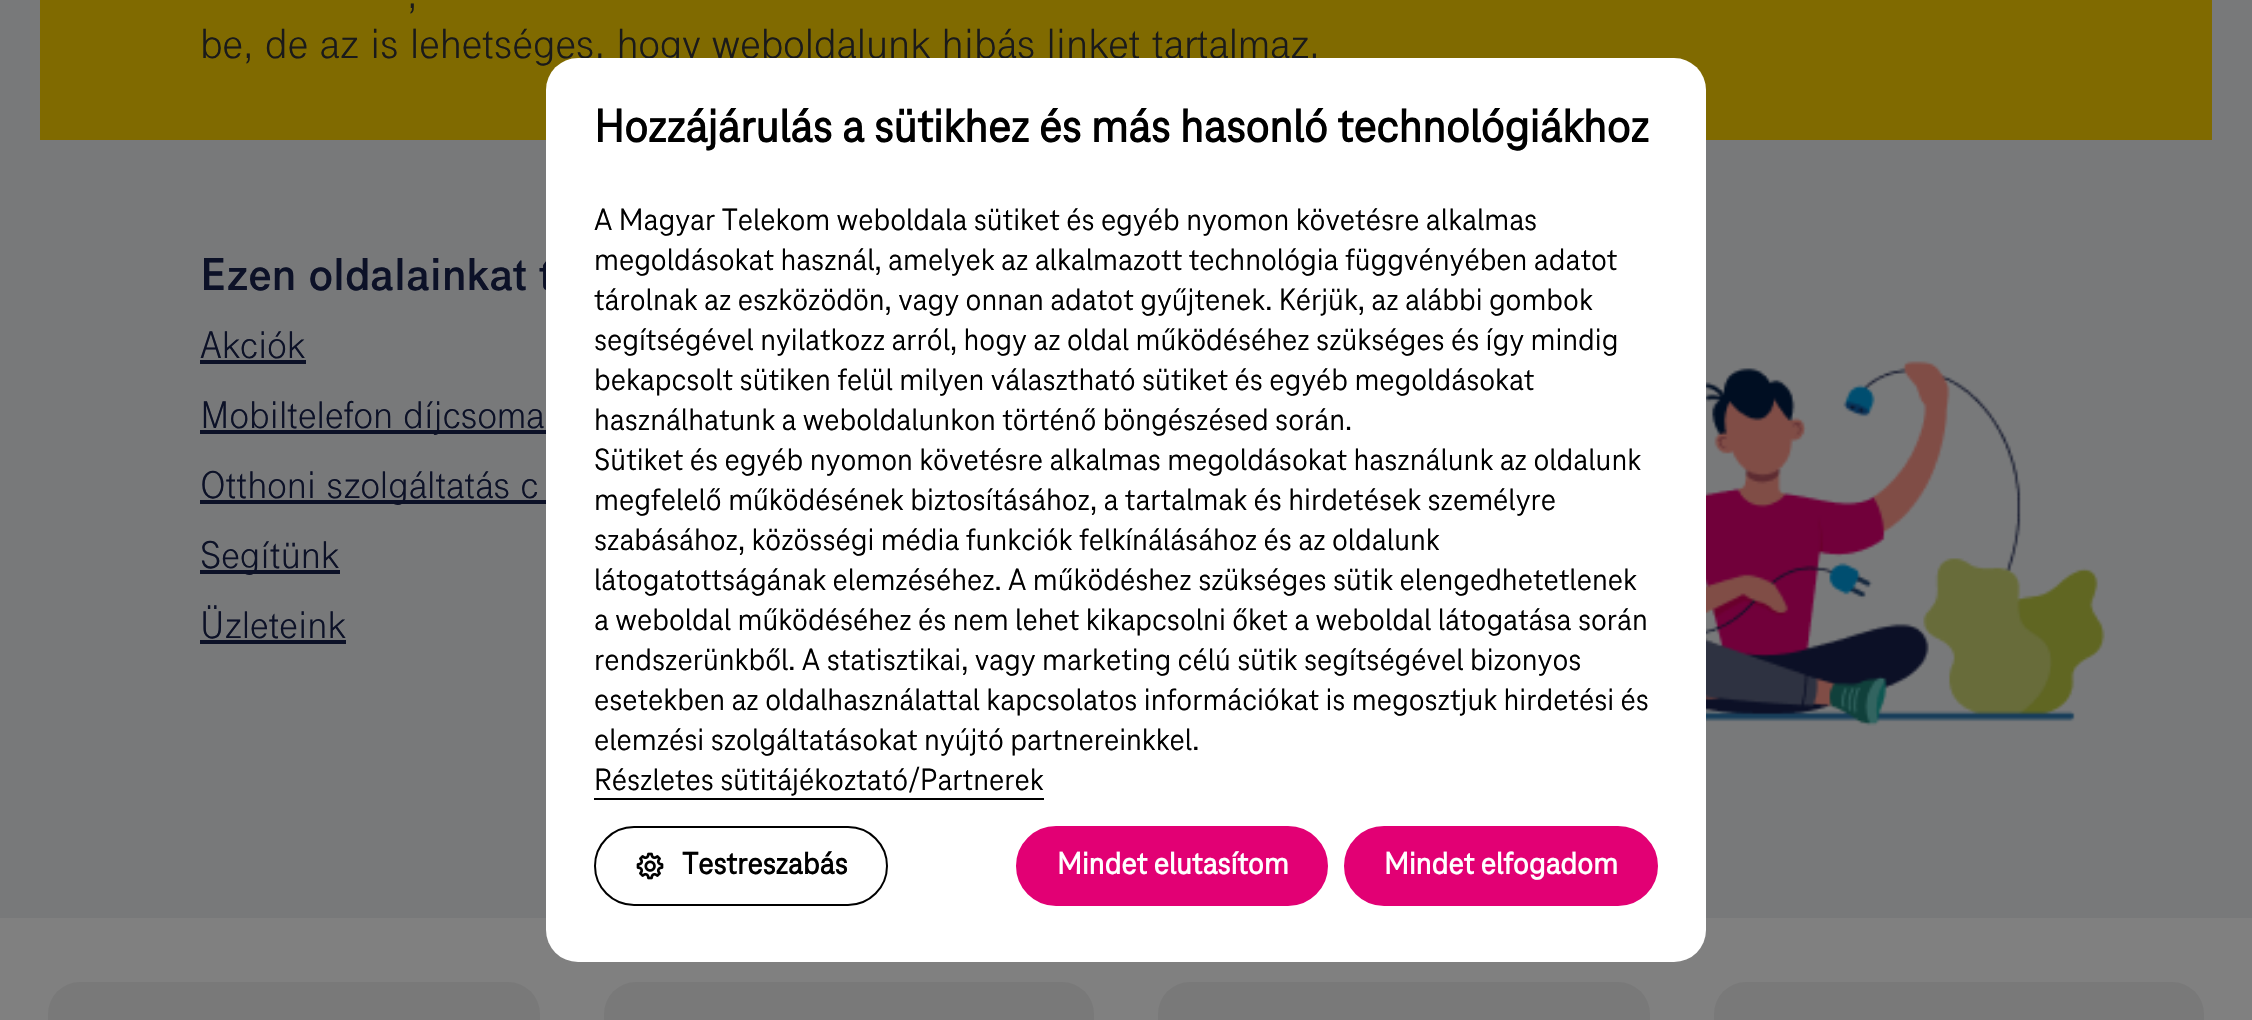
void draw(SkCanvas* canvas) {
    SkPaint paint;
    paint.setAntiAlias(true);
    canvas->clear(0xFF78797A);
    paint.setColor(0xFF806A00);
    canvas->drawRect(SkRect::MakeXYWH(40, 0, 2172, 140), paint);
    SkFont font1(fontMgr->matchFamilyStyle("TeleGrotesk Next", SkFontStyle::Normal()), 44);
    font1.setSubpixel(true);
    paint.setColor(0xFF1A1A1A);
    canvas->drawString(",", 407, 8, font1, paint);
    canvas->drawString("be, de az is lehetséges, hogy weboldalunk hibás linket tartalmaz.", 200, 58, font1, paint);
    SkFont font2(fontMgr->matchFamilyStyle("TeleGrotesk Next", SkFontStyle::Bold()), 48);
    font2.setSubpixel(true);
    paint.setColor(0xFF0C1127);
    canvas->drawString("Ezen oldalainkat t", 200, 290, font2, paint);
    SkFont font3(fontMgr->matchFamilyStyle("TeleGrotesk Next", SkFontStyle::Normal()), 40);
    font3.setSubpixel(true);
    canvas->drawString("Akciók", 200, 358, font3, paint);
    canvas->drawRect(SkRect::MakeXYWH(200, 360, 106, 4), paint);
    canvas->drawRect(SkRect::MakeXYWH(200, 430, 346, 4), paint);
    canvas->drawString("Mobiltelefon díjcsoma", 200, 428, font3, paint);
    canvas->drawRect(SkRect::MakeXYWH(200, 500, 346, 4), paint);
    canvas->drawString("Otthoni szolgáltatás c", 200, 498, font3, paint);
    canvas->drawRect(SkRect::MakeXYWH(200, 570, 140, 4), paint);
    canvas->drawString("Segítünk", 200, 568, font3, paint);
    canvas->drawString("Üzleteink", 200, 638, font3, paint);
    canvas->drawRect(SkRect::MakeXYWH(200, 640, 146, 4), paint);
    canvas->drawImageRect(SkImages::DeferredFromEncodedData(SkData::MakeFromFileName("img1.png")), SkRect::MakeXYWH(1706, 360, 399, 366), SkSamplingOptions());
    paint.setColor(0xFF808080);
    canvas->drawRect(SkRect::MakeXYWH(0, 918, 2252, 102), paint);
    paint.setColor(0xFFFFFFFF);
    canvas->drawRoundRect(SkRect::MakeXYWH(546, 58, 1160, 904), 32, 32, paint);
    SkFont font4(fontMgr->matchFamilyStyle("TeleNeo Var", SkFontStyle::Bold()), 48);
    font4.setSubpixel(true);
    paint.setColor(0xFF000000);
    canvas->drawString("Hozzájárulás a sütikhez és más hasonló technológiákhoz", 594, 142, font4, paint);
    SkFont font5(fontMgr->matchFamilyStyle("TeleNeo Var", SkFontStyle::Normal()), 32);
    font5.setSubpixel(true);
    canvas->drawString("A Magyar Telekom weboldala sütiket és egyéb nyomon követésre alkalmas", 594, 230, font5, paint);
    canvas->drawString("megoldásokat használ, amelyek az alkalmazott technológia függvényében adatot", 594, 270, font5, paint);
    canvas->drawString("tárolnak az eszközödön, vagy onnan adatot gyűjtenek. Kérjük, az alábbi gombok", 594, 310, font5, paint);
    canvas->drawString("segítségével nyilatkozz arról, hogy az oldal működéséhez szükséges és így mindig", 594, 350, font5, paint);
    canvas->drawString("bekapcsolt sütiken felül milyen választható sütiket és egyéb megoldásokat", 594, 390, font5, paint);
    canvas->drawString("használhatunk a weboldalunkon történő böngészésed során.", 594, 430, font5, paint);
    canvas->drawString("Sütiket és egyéb nyomon követésre alkalmas megoldásokat használunk az oldalunk", 594, 470, font5, paint);
    canvas->drawString("megfelelő működésének biztosításához, a tartalmak és hirdetések személyre", 594, 510, font5, paint);
    canvas->drawString("szabásához, közösségi média funkciók felkínálásához és az oldalunk", 594, 550, font5, paint);
    canvas->drawString("látogatottságának elemzéséhez. A működéshez szükséges sütik elengedhetetlenek", 594, 590, font5, paint);
    canvas->drawString("a weboldal működéséhez és nem lehet kikapcsolni őket a weboldal látogatása során", 594, 630, font5, paint);
    canvas->drawString("rendszerünkből. A statisztikai, vagy marketing célú sütik segítségével bizonyos", 594, 670, font5, paint);
    canvas->drawString("esetekben az oldalhasználattal kapcsolatos információkat is megosztjuk hirdetési és", 594, 710, font5, paint);
    canvas->drawString("elemzési szolgáltatásokat nyújtó partnereinkkel.", 594, 750, font5, paint);
    canvas->drawString("Részletes sütitájékoztató/Partnerek", 594, 790, font5, paint);
    canvas->drawRect(SkRect::MakeXYWH(594, 798, 450, 2), paint);
    paint.setStyle(SkPaint::kStroke_Style);
    paint.setStrokeWidth(2);
    canvas->drawRoundRect(SkRect::MakeXYWH(595, 827, 292, 78), 39, 39, paint);
    canvas->drawImageRect(SkImages::DeferredFromEncodedData(SkData::MakeFromFileName("img2.png")), SkRect::MakeXYWH(636, 852, 28, 28), SkSamplingOptions());
    SkFont font6(fontMgr->matchFamilyStyle("TeleNeo Var", SkFontStyle::Bold()), 32);
    font6.setSubpixel(true);
    paint.setStyle(SkPaint::kFill_Style);
    canvas->drawString("Testreszabás", 682, 874, font6, paint);
    paint.setColor(0xFFE20074);
    canvas->drawRoundRect(SkRect::MakeXYWH(1017, 827, 310, 78), 39, 39, paint);
    paint.setStyle(SkPaint::kStroke_Style);
    canvas->drawRoundRect(SkRect::MakeXYWH(1017, 827, 310, 78), 39, 39, paint);
    paint.setStyle(SkPaint::kFill_Style);
    paint.setColor(0xFFFFFFFF);
    canvas->drawString("Mindet elutasítom", 1057, 874, font6, paint);
    paint.setColor(0xFFE20074);
    canvas->drawRoundRect(SkRect::MakeXYWH(1345, 827, 312, 78), 39, 39, paint);
    paint.setStyle(SkPaint::kStroke_Style);
    canvas->drawRoundRect(SkRect::MakeXYWH(1345, 827, 312, 78), 39, 39, paint);
    paint.setStyle(SkPaint::kFill_Style);
    paint.setColor(0xFFFFFFFF);
    canvas->drawString("Mindet elfogadom", 1384, 874, font6, paint);
    paint.setColor(0xFF797979);
    canvas->drawRoundRect(SkRect::MakeXYWH(48, 982, 492, 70), 32, 32, paint);
    canvas->drawRoundRect(SkRect::MakeXYWH(604, 982, 490, 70), 32, 32, paint);
    canvas->drawRoundRect(SkRect::MakeXYWH(1158, 982, 492, 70), 32, 32, paint);
    canvas->drawRoundRect(SkRect::MakeXYWH(1714, 982, 490, 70), 32, 32, paint);
}
